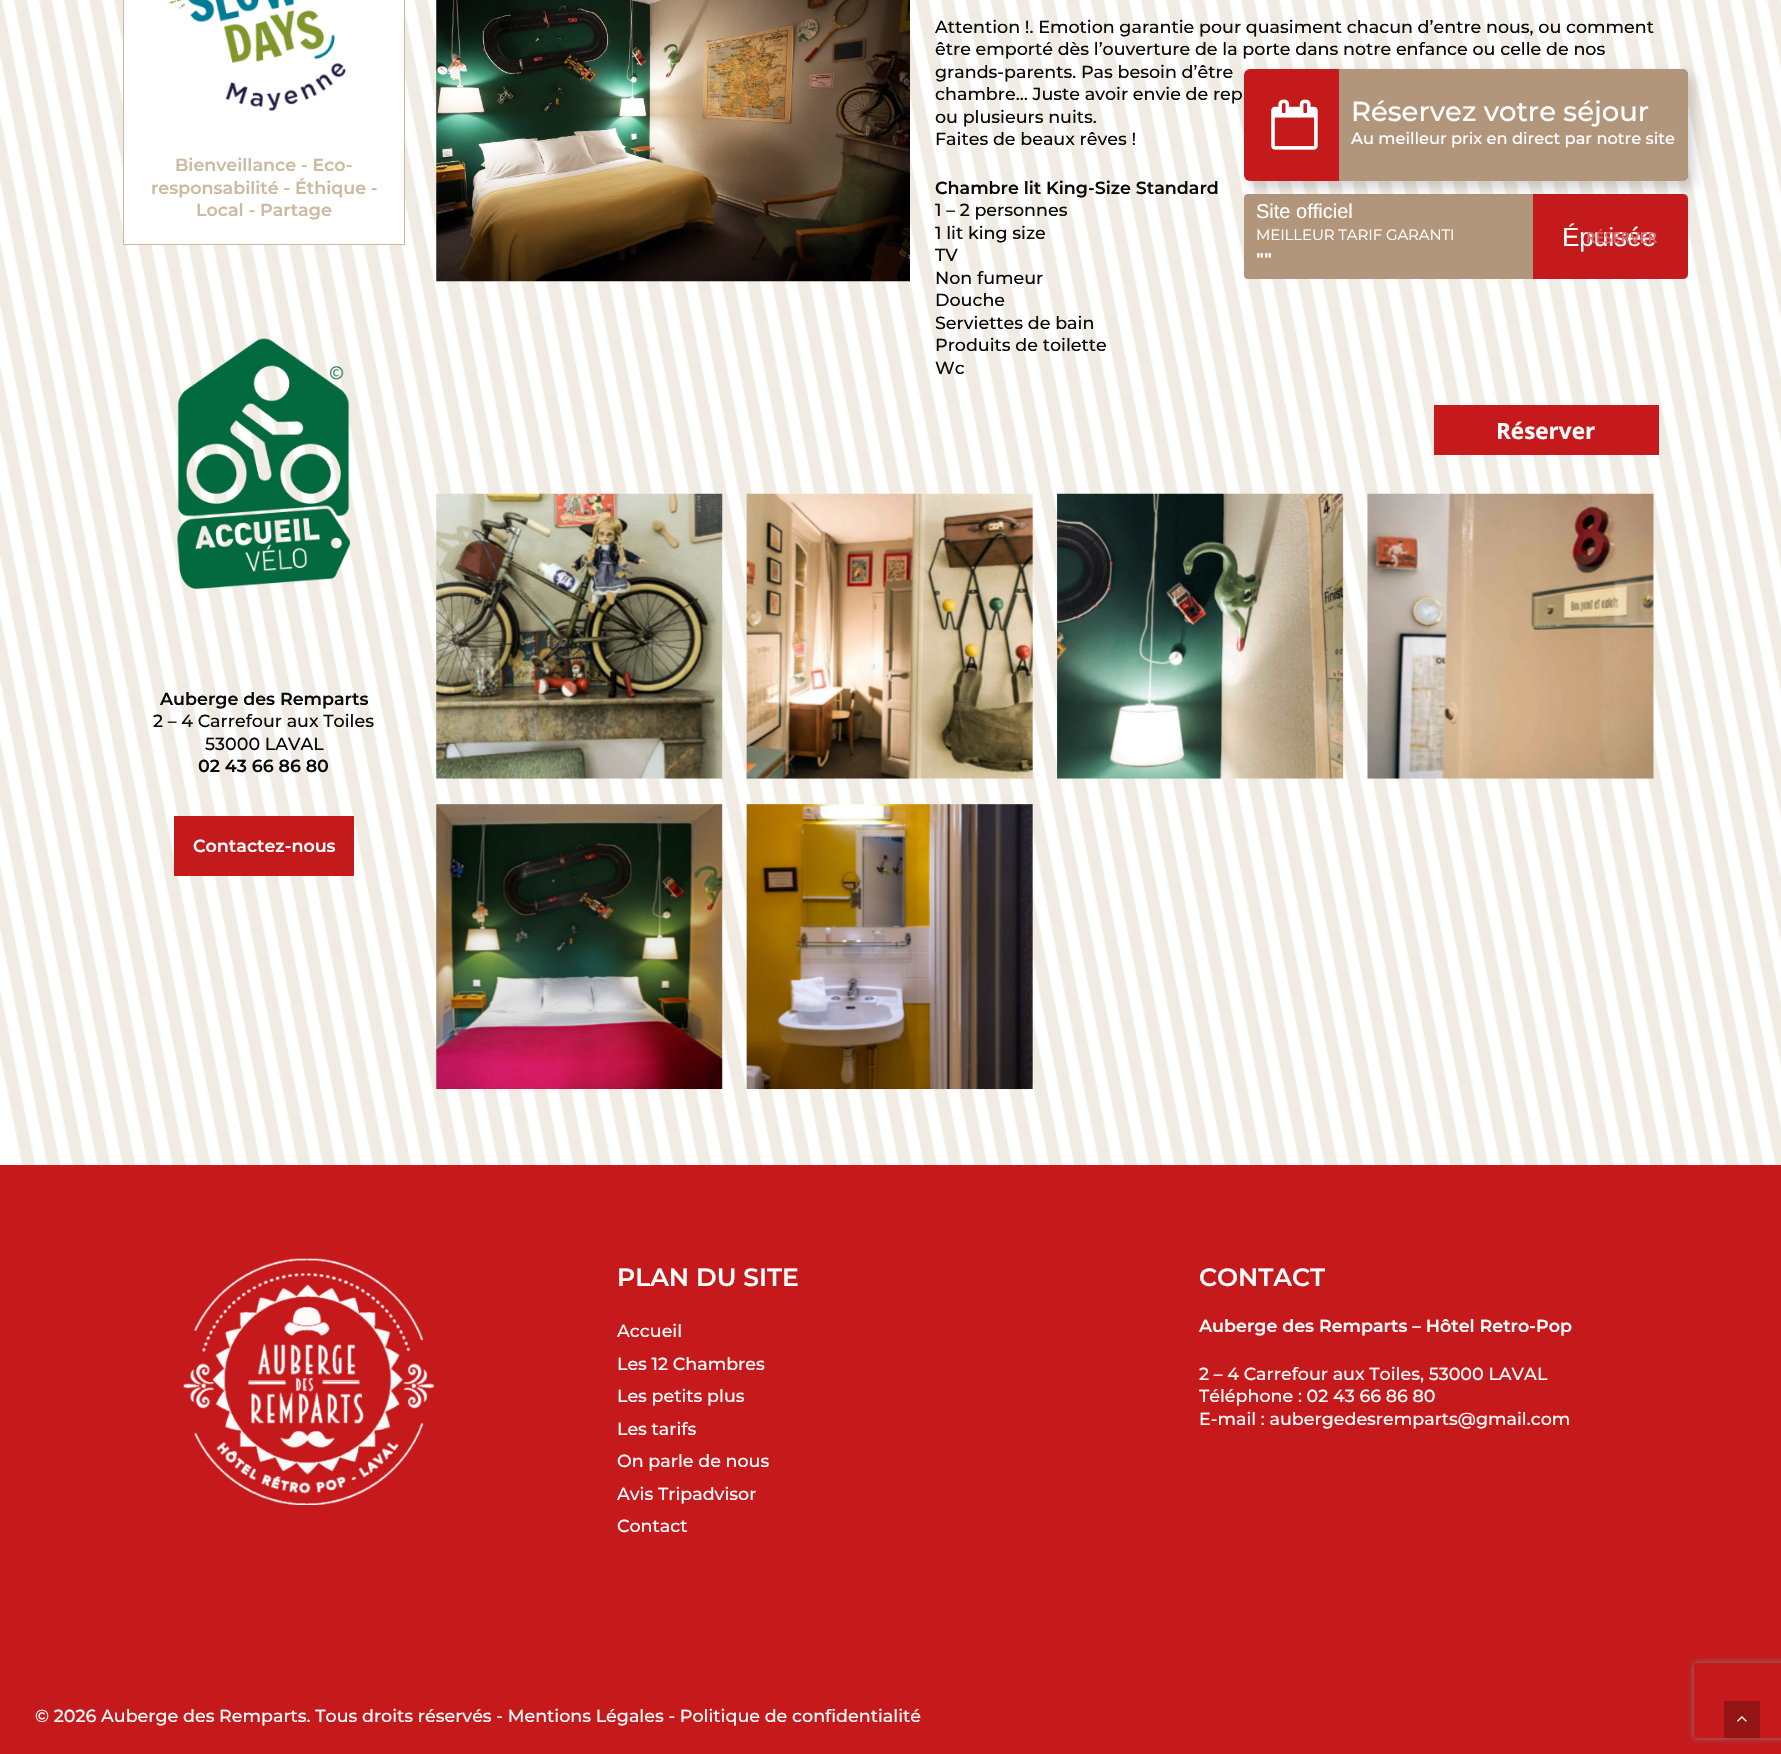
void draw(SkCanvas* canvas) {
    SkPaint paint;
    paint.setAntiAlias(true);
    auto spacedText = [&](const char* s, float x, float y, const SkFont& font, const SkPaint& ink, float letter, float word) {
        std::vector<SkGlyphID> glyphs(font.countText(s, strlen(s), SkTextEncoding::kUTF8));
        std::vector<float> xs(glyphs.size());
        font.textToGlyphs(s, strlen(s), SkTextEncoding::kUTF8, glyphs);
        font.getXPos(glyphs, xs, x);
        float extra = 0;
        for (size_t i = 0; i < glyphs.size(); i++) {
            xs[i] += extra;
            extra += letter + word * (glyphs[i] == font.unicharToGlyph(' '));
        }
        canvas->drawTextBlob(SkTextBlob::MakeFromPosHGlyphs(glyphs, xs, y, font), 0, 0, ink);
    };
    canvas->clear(0xFFFFFFFF);
    canvas->drawImageRect(SkImages::DeferredFromEncodedData(SkData::MakeFromFileName("img1.png")), SkRect::MakeXYWH(0, 0, 1781, 1165), SkSamplingOptions());
    paint.setColor(0xFFFFFFFF);
    canvas->drawRect(SkRect::MakeXYWH(124, 0, 280, 244), paint);
    paint.setColor(0xFFCABA9F);
    canvas->drawRect(SkRect::MakeXYWH(404, 0, 1, 245), paint);
    canvas->drawRect(SkRect::MakeXYWH(123, 0, 1, 131), paint);
    canvas->drawImageRect(SkImages::DeferredFromEncodedData(SkData::MakeFromFileName("img2.png")), SkRect::MakeXYWH(169, 0, 177, 111), SkSamplingOptions());
    canvas->drawRect(SkRect::MakeXYWH(123, 244, 282, 1), paint);
    canvas->drawRect(SkRect::MakeXYWH(123, 131, 1, 114), paint);
    SkFont font1(fontMgr->matchFamilyStyle("Montserrat", SkFontStyle(600, SkFontStyle::kNormal_Width, SkFontStyle::kUpright_Slant)), 17.5f);
    font1.setSubpixel(true);
    canvas->drawString("Bienveillance - Eco-", 175, 171, font1, paint);
    canvas->drawString("responsabilité - Éthique -", 151, 194, font1, paint);
    canvas->drawString("Local - Partage", 196, 216, font1, paint);
    canvas->drawImageRect(SkImages::DeferredFromEncodedData(SkData::MakeFromFileName("img3.png")), SkRect::MakeXYWH(177, 338, 173, 251), SkSamplingOptions());
    paint.setColor(0xFF0A0A0A);
    canvas->drawString("Auberge des Remparts", 160, 705, font1, paint);
    SkFont font2(fontMgr->matchFamilyStyle("Montserrat", SkFontStyle(500, SkFontStyle::kNormal_Width, SkFontStyle::kUpright_Slant)), 17.5f);
    font2.setSubpixel(true);
    canvas->drawString("2 – 4 Carrefour aux Toiles", 153, 727, font2, paint);
    canvas->drawString("53000 LAVAL", 205, 750, font2, paint);
    canvas->drawString("02 43 66 86 80", 198, 772, font1, paint);
    paint.setColor(0xFFC51A1B);
    canvas->drawRect(SkRect::MakeXYWH(174, 816, 180, 60), paint);
    paint.setColor(0xFFFFFFFF);
    canvas->drawString("Contactez-nous", 193, 852, font1, paint);
    canvas->drawImageRect(SkImages::DeferredFromEncodedData(SkData::MakeFromFileName("img4.png")), SkRect::MakeXYWH(436, 0, 474, 282), SkSamplingOptions());
    paint.setColor(0xFF0A0A0A);
    canvas->drawString("Attention !. Emotion garantie pour quasiment chacun d’entre nous, ou comment", 935, 33, font2, paint);
    canvas->drawString("être emporté dès l’ouverture de la porte dans notre enfance ou celle de nos", 935, 55, font2, paint);
    canvas->drawString("grands-parents. Pas besoin d’être", 935, 78, font2, paint);
    canvas->drawString("chambre… Juste avoir envie de rep", 935, 100, font2, paint);
    canvas->drawString("ou plusieurs nuits.", 935, 123, font2, paint);
    canvas->drawString("Faites de beaux rêves !", 935, 145, font2, paint);
    canvas->drawString("Chambre lit King-Size Standard", 935, 194, font1, paint);
    canvas->drawString("1 – 2 personnes", 935, 216, font2, paint);
    canvas->drawString("1 lit king size", 935, 239, font2, paint);
    canvas->drawString("TV", 935, 261, font2, paint);
    canvas->drawString("Non fumeur", 935, 284, font2, paint);
    canvas->drawString("Douche", 935, 306, font2, paint);
    canvas->drawString("Serviettes de bain", 935, 329, font2, paint);
    canvas->drawString("Produits de toilette", 935, 351, font2, paint);
    canvas->drawString("Wc", 935, 374, font2, paint);
    paint.setColor(0xFFC5191B);
    canvas->drawRect(SkRect::MakeXYWH(1434, 405, 225, 50), paint);
    SkFont font3(fontMgr->matchFamilyStyle("Open Sans", SkFontStyle::Bold()), 22.5f);
    font3.setSubpixel(true);
    paint.setColor(0xFFFFFFFF);
    canvas->drawString("Réserver", 1496, 439, font3, paint);
    canvas->drawImageRect(SkImages::DeferredFromEncodedData(SkData::MakeFromFileName("img5.png")), SkRect::MakeXYWH(436, 493, 287, 286), SkSamplingOptions());
    canvas->drawImageRect(SkImages::DeferredFromEncodedData(SkData::MakeFromFileName("img6.png")), SkRect::MakeXYWH(746, 493, 287, 286), SkSamplingOptions());
    canvas->drawImageRect(SkImages::DeferredFromEncodedData(SkData::MakeFromFileName("img7.png")), SkRect::MakeXYWH(1057, 493, 287, 286), SkSamplingOptions());
    canvas->drawImageRect(SkImages::DeferredFromEncodedData(SkData::MakeFromFileName("img8.png")), SkRect::MakeXYWH(1367, 493, 287, 286), SkSamplingOptions());
    canvas->drawImageRect(SkImages::DeferredFromEncodedData(SkData::MakeFromFileName("img9.png")), SkRect::MakeXYWH(436, 804, 287, 286), SkSamplingOptions());
    canvas->drawImageRect(SkImages::DeferredFromEncodedData(SkData::MakeFromFileName("img10.png")), SkRect::MakeXYWH(746, 804, 287, 286), SkSamplingOptions());
    paint.setColor(0xFFC5191B);
    canvas->drawRect(SkRect::MakeXYWH(0, 1165, 1781, 589), paint);
    canvas->drawImageRect(SkImages::DeferredFromEncodedData(SkData::MakeFromFileName("img11.png")), SkRect::MakeXYWH(183, 1258, 251, 247), SkSamplingOptions());
    SkFont font4(fontMgr->matchFamilyStyle("Montserrat", SkFontStyle(600, SkFontStyle::kNormal_Width, SkFontStyle::kUpright_Slant)), 25);
    font4.setSubpixel(true);
    paint.setColor(0xFFFFFFFF);
    canvas->drawString("PLAN DU SITE", 617, 1286, font4, paint);
    canvas->drawString("Accueil", 617, 1337, font2, paint);
    canvas->drawString("Les 12 Chambres", 617, 1370, font2, paint);
    canvas->drawString("Les petits plus", 617, 1402, font2, paint);
    canvas->drawString("Les tarifs", 617, 1435, font2, paint);
    canvas->drawString("On parle de nous", 617, 1467, font2, paint);
    canvas->drawString("Avis Tripadvisor", 617, 1500, font2, paint);
    canvas->drawString("Contact", 617, 1532, font2, paint);
    canvas->drawString("CONTACT", 1199, 1286, font4, paint);
    canvas->drawString("Auberge des Remparts – Hôtel Retro-Pop", 1199, 1332, font1, paint);
    canvas->drawString("2 – 4 Carrefour aux Toiles, 53000 LAVAL", 1199, 1380, font2, paint);
    canvas->drawString("Téléphone : 02 43 66 86 80", 1199, 1402, font2, paint);
    canvas->drawString("E-mail : aubergedesremparts@gmail.com", 1199, 1425, font2, paint);
    canvas->drawString("© 2026 Auberge des Remparts. Tous droits réservés - Mentions Légales - Politique de confidentialité", 35, 1722, font2, paint);
    paint.setColor(0xFF941314);
    canvas->drawRect(SkRect::MakeXYWH(1724, 1701, 36, 37), paint);
    canvas->drawImageRect(SkImages::DeferredFromEncodedData(SkData::MakeFromFileName("img12.png")), SkRect::MakeXYWH(1737, 1716, 10, 6), SkSamplingOptions());
    paint.setColor(0xFFB1967C);
    canvas->drawRoundRect(SkRect::MakeXYWH(1244, 194, 444, 85), 4, 4, paint);
    paint.setColor(0xFFC51A1B);
    canvas->drawPath(SkPathBuilder().moveTo(1533, 194).lineTo(1682, 194).cubicTo(1685.5f, 194, 1688, 196.5f, 1688, 200).lineTo(1688, 273).cubicTo(1688, 276.5f, 1685.5f, 279, 1682, 279).lineTo(1533, 279).close().detach(), paint);
    paint.setColor(0x29000000);
    paint.setMaskFilter(SkMaskFilter::MakeBlur(kNormal_SkBlurStyle, 6));
    canvas->drawRoundRect(SkRect::MakeXYWH(1250, 75, 444, 113), 6, 6, paint);
    paint.setMaskFilter(nullptr);
    paint.setColor(0xFFC51A1B);
    canvas->drawRoundRect(SkRect::MakeXYWH(1244, 69, 444, 112), 6, 6, paint);
    canvas->drawImageRect(SkImages::DeferredFromEncodedData(SkData::MakeFromFileName("img13.png")), SkRect::MakeXYWH(1271, 99, 47, 51), SkSamplingOptions());
    paint.setColor(0xFFB1967C);
    canvas->drawPath(SkPathBuilder().moveTo(1339, 69).lineTo(1682, 69).cubicTo(1685.5f, 69, 1688, 71.5f, 1688, 75).lineTo(1688, 175).cubicTo(1688, 178.5f, 1685.5f, 181, 1682, 181).lineTo(1339, 181).close().detach(), paint);
    SkFont font5(fontMgr->matchFamilyStyle("Montserrat", SkFontStyle(500, SkFontStyle::kNormal_Width, SkFontStyle::kUpright_Slant)), 27.5f);
    font5.setSubpixel(true);
    paint.setColor(0xFFFFFFFF);
    canvas->drawString("Réservez votre séjour", 1351, 121, font5, paint);
    SkFont font6(fontMgr->matchFamilyStyle("Montserrat", SkFontStyle(500, SkFontStyle::kNormal_Width, SkFontStyle::kUpright_Slant)), 16.25f);
    font6.setSubpixel(true);
    canvas->drawString("Au meilleur prix en direct par notre site", 1351, 144, font6, paint);
    SkFont font7(fontMgr->matchFamilyStyle("Liberation Sans", SkFontStyle::Normal()), 20);
    font7.setSubpixel(true);
    canvas->drawString("Site officiel", 1256, 218, font7, paint);
    SkFont font8(fontMgr->matchFamilyStyle("Montserrat", SkFontStyle::Normal()), 15);
    font8.setSubpixel(true);
    spacedText("MEILLEUR TARIF GARANTI", 1256, 240, font8, paint, -0.1f, 0);
    SkFont font9(fontMgr->matchFamilyStyle("Liberation Sans", SkFontStyle::Normal()), 26);
    font9.setSubpixel(true);
    canvas->drawString("Épuisée", 1562, 246, font9, paint);
    SkFont font10(fontMgr->matchFamilyStyle("Open Sans", SkFontStyle(600, SkFontStyle::kNormal_Width, SkFontStyle::kUpright_Slant)), 15);
    font10.setSubpixel(true);
    paint.setColor(0xFFD96A6B);
    canvas->drawString("RÉSERVER", 1586, 243, font10, paint);
    SkFont font11(fontMgr->matchFamilyStyle("Liberation Sans", SkFontStyle::Bold()), 17);
    font11.setSubpixel(true);
    paint.setColor(0xFFFFFFFF);
    canvas->drawString("\"\"", 1256, 265, font11, paint);
    canvas->save();
    canvas->clipPath(SkPathBuilder(SkPathFillType::kEvenOdd).moveTo(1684, 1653).lineTo(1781, 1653).lineTo(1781, 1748).lineTo(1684, 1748).close().moveTo(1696.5f, 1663).lineTo(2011.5f, 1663).cubicTo(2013, 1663, 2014, 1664, 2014, 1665.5f).lineTo(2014, 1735.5f).cubicTo(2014, 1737, 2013, 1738, 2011.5f, 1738).lineTo(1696.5f, 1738).cubicTo(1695, 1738, 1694, 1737, 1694, 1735.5f).lineTo(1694, 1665.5f).cubicTo(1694, 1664, 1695, 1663, 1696.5f, 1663).close().detach(), true);
    paint.setColor(0xFF808080);
    paint.setMaskFilter(SkMaskFilter::MakeBlur(kNormal_SkBlurStyle, 3));
    canvas->drawRoundRect(SkRect::MakeXYWH(1694, 1663, 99, 75), 2.5f, 2.5f, paint);
    paint.setMaskFilter(nullptr);
    canvas->restore();
}
